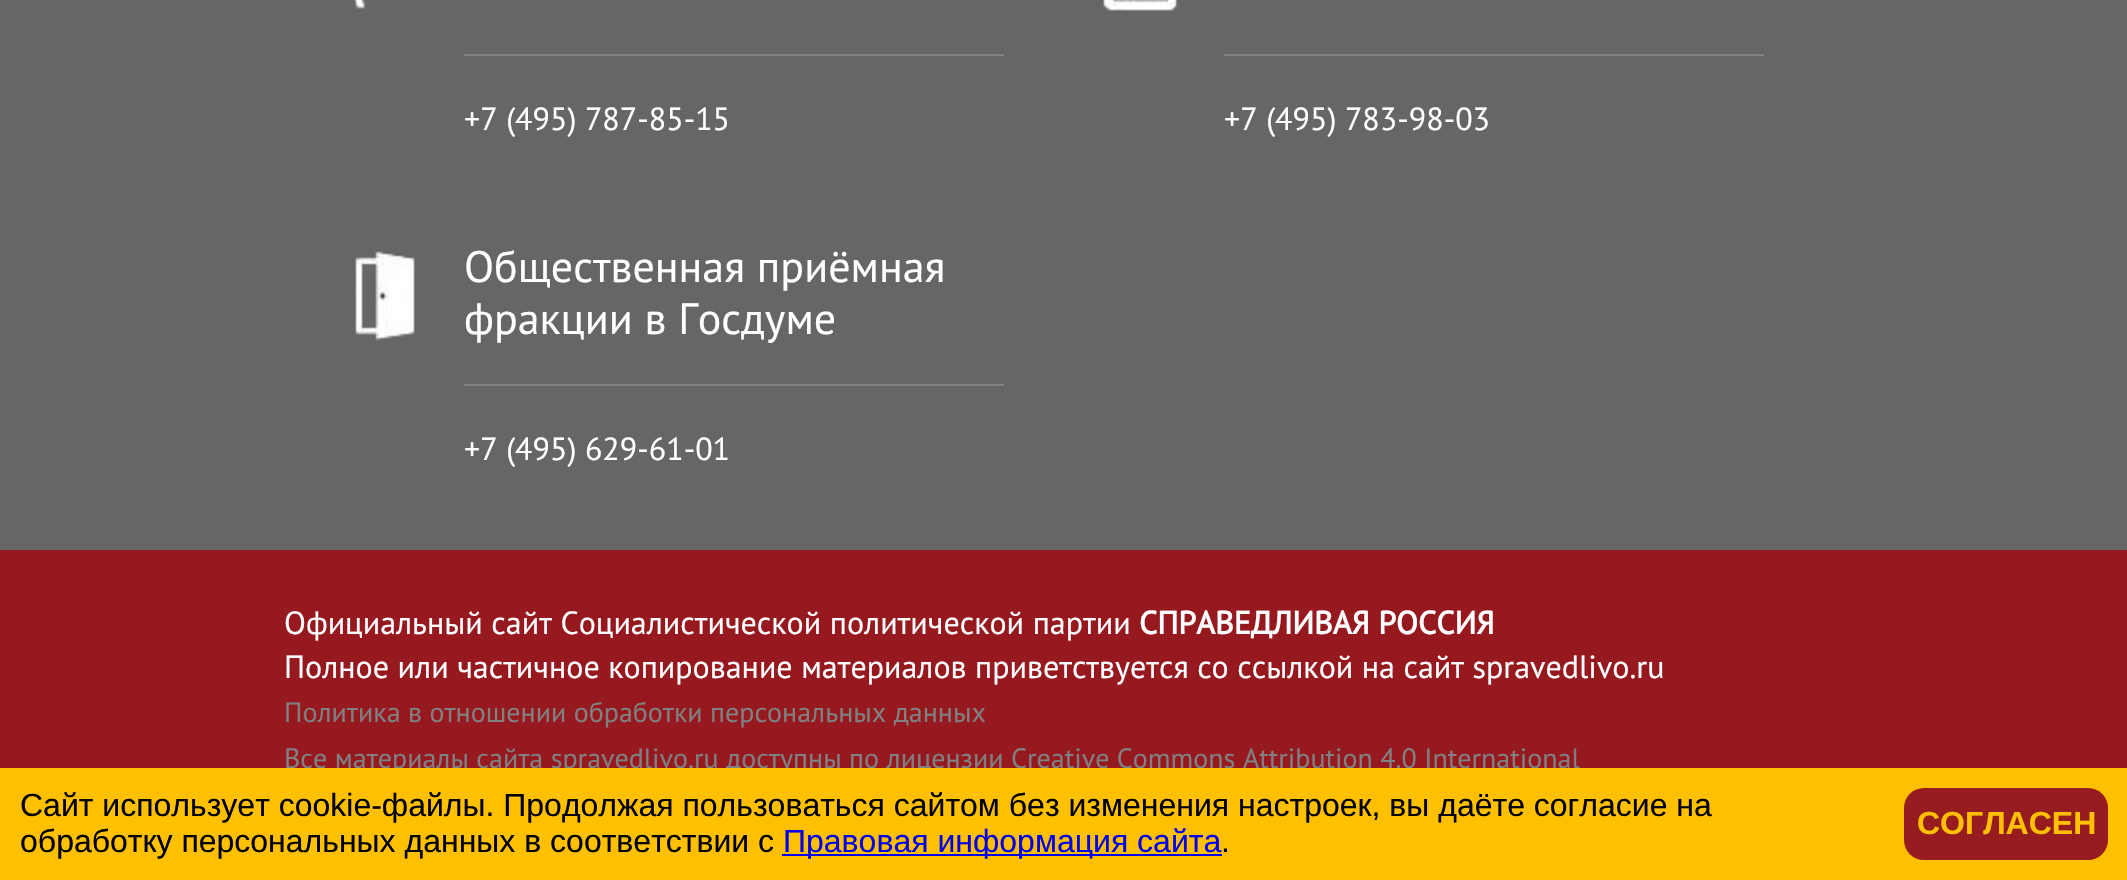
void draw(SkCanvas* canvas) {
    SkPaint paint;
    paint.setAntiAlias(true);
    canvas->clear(0xFF666666);
    canvas->drawImageRect(SkImages::DeferredFromEncodedData(SkData::MakeFromFileName("img1.png")), SkRect::MakeXYWH(353, 0, 13, 9), SkSamplingOptions());
    paint.setColor(0xFF808080);
    canvas->drawRect(SkRect::MakeXYWH(464, 54, 540, 2), paint);
    SkFont font1(fontMgr->matchFamilyStyle("PT Sans", SkFontStyle::Normal()), 32);
    font1.setSubpixel(true);
    paint.setColor(0xFFFFFFFF);
    canvas->drawString("+7 (495) 787-85-15", 464, 130, font1, paint);
    canvas->drawImageRect(SkImages::DeferredFromEncodedData(SkData::MakeFromFileName("img2.png")), SkRect::MakeXYWH(1103, 0, 75, 11), SkSamplingOptions());
    paint.setColor(0xFF808080);
    canvas->drawRect(SkRect::MakeXYWH(1224, 54, 540, 2), paint);
    paint.setColor(0xFFFFFFFF);
    canvas->drawString("+7 (495) 783-98-03", 1224, 130, font1, paint);
    canvas->drawImageRect(SkImages::DeferredFromEncodedData(SkData::MakeFromFileName("img3.png")), SkRect::MakeXYWH(355, 250, 60, 91), SkSamplingOptions());
    paint.setColor(0xFF808080);
    canvas->drawRect(SkRect::MakeXYWH(464, 384, 540, 2), paint);
    SkFont font2(fontMgr->matchFamilyStyle("PT Sans", SkFontStyle::Normal()), 44);
    font2.setSubpixel(true);
    paint.setColor(0xFFFFFFFF);
    canvas->drawString("Общественная приёмная", 464, 282, font2, paint);
    canvas->drawString("фракции в Госдуме", 464, 334, font2, paint);
    canvas->drawString("+7 (495) 629-61-01", 464, 460, font1, paint);
    paint.setColor(0xFF96191F);
    canvas->drawRect(SkRect::MakeXYWH(0, 550, 2127, 218), paint);
    paint.setColor(0xFFFFFFFF);
    canvas->drawString("Официальный сайт Социалистической политической партии", 284, 634, font1, paint);
    SkFont font3(fontMgr->matchFamilyStyle("PT Sans", SkFontStyle::Bold()), 32);
    font3.setSubpixel(true);
    canvas->drawString("СПРАВЕДЛИВАЯ РОССИЯ", 1139, 634, font3, paint);
    canvas->drawString("Полное или частичное копирование материалов приветствуется со ссылкой на сайт spravedlivo.ru", 284, 678, font1, paint);
    SkFont font4(fontMgr->matchFamilyStyle("PT Sans", SkFontStyle::Normal()), 28);
    font4.setSubpixel(true);
    paint.setColor(0xFF808080);
    canvas->drawString("Политика в отношении обработки персональных данных", 284, 722, font4, paint);
    canvas->drawString("Все материалы сайта spravedlivo.ru доступны по лицензии Creative Commons Attribution 4.0 International", 284, 768, font4, paint);
    paint.setColor(0xFFFFC002);
    canvas->drawRect(SkRect::MakeXYWH(0, 768, 2127, 112), paint);
    SkFont font5(fontMgr->matchFamilyStyle("Liberation Sans", SkFontStyle::Normal()), 32);
    font5.setSubpixel(true);
    paint.setColor(0xFF000000);
    canvas->drawString("Сайт использует cookie-файлы. Продолжая пользоваться сайтом без изменения настроек, вы даёте согласие на", 20, 816, font5, paint);
    canvas->drawString("обработку персональных данных в соответствии с", 20, 852, font5, paint);
    paint.setColor(0xFF0000EE);
    canvas->drawRect(SkRect::MakeXYWH(782, 854, 440, 2), paint);
    canvas->drawString("Правовая информация сайта", 783, 852, font5, paint);
    paint.setColor(0xFF000000);
    canvas->drawString(".", 1221, 852, font5, paint);
    paint.setColor(0xFF961C20);
    canvas->drawRoundRect(SkRect::MakeXYWH(1904, 788, 204, 72), 20, 20, paint);
    SkFont font6(fontMgr->matchFamilyStyle("Liberation Sans", SkFontStyle::Bold()), 32);
    font6.setSubpixel(true);
    paint.setColor(0xFFFFC002);
    canvas->drawString("СОГЛАСЕН", 1917, 834, font6, paint);
}
